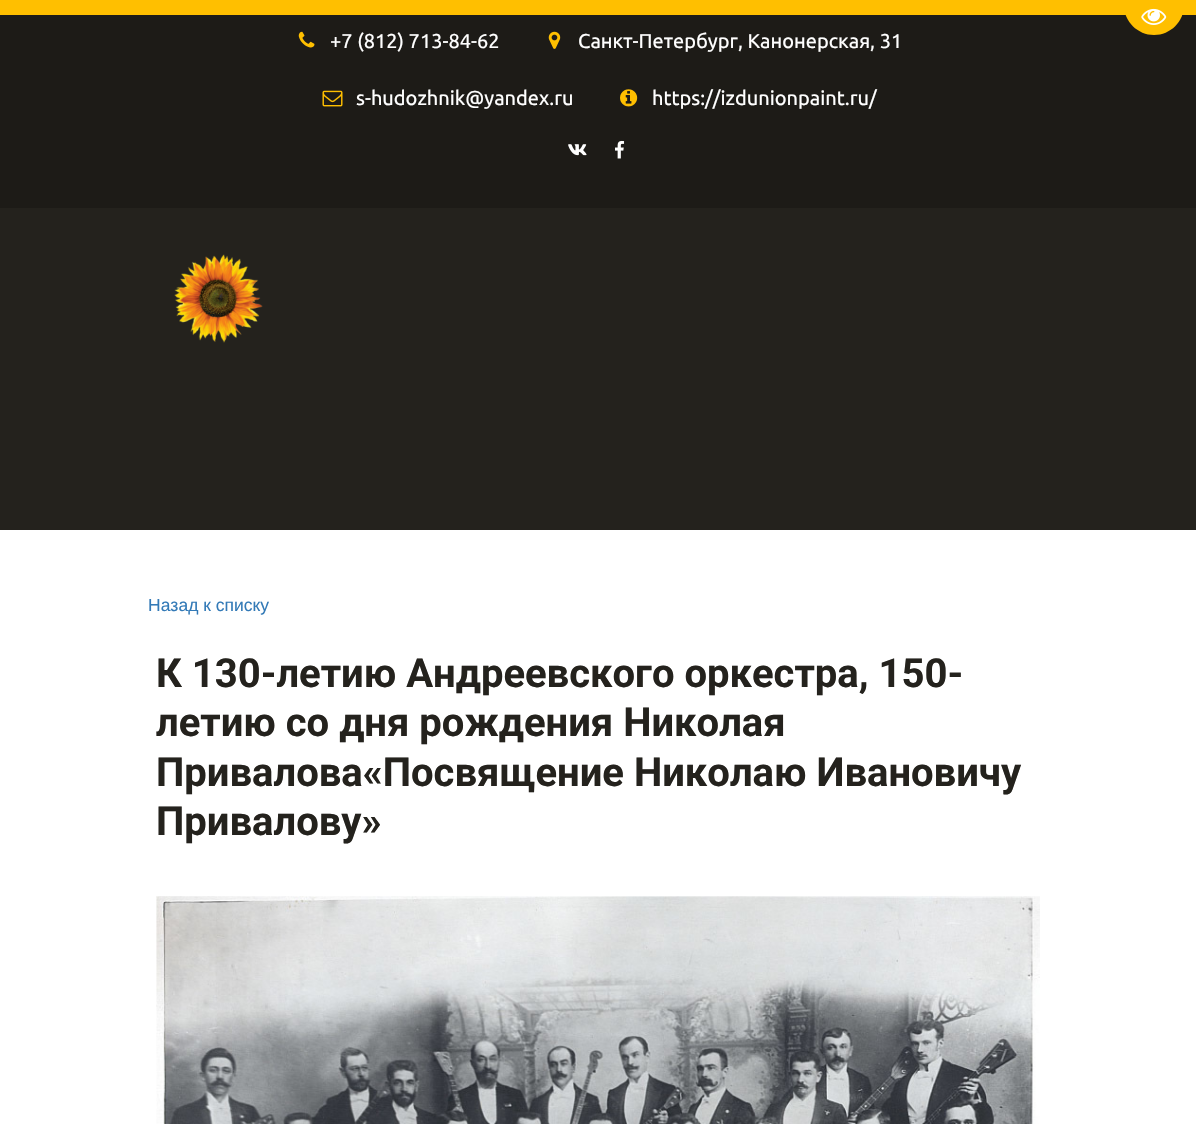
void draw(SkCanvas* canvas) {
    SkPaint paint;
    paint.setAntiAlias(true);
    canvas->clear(0xFFFFFFFF);
    paint.setColor(0xFFFFBF00);
    canvas->drawRect(SkRect::MakeXYWH(0, 0, 1196, 15), paint);
    paint.setColor(0xFF1D1B17);
    canvas->drawRect(SkRect::MakeXYWH(0, 15, 1196, 193), paint);
    paint.setColor(0xFFFFBF00);
    canvas->drawPath(SkPathBuilder().moveTo(1124, -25).lineTo(1184, -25).lineTo(1184, 5).cubicTo(1184, 21.5f, 1170.5f, 35, 1154, 35).cubicTo(1137.5f, 35, 1124, 21.5f, 1124, 5).close().detach(), paint);
    canvas->drawImageRect(SkImages::DeferredFromEncodedData(SkData::MakeFromFileName("img1.png")), SkRect::MakeXYWH(1141, 8, 26, 17), SkSamplingOptions());
    paint.setColor(0xFF24221D);
    canvas->drawRect(SkRect::MakeXYWH(0, 208, 1196, 322), paint);
    canvas->drawImageRect(SkImages::DeferredFromEncodedData(SkData::MakeFromFileName("img2.png")), SkRect::MakeXYWH(298, 31, 17, 17), SkSamplingOptions());
    SkFont font1(fontMgr->matchFamilyStyle("Ubuntu", SkFontStyle::Normal()), 20);
    font1.setSubpixel(true);
    paint.setColor(0xFFFFFFFF);
    canvas->drawString("+7 (812) 713-84-62", 330, 48, font1, paint);
    canvas->drawImageRect(SkImages::DeferredFromEncodedData(SkData::MakeFromFileName("img3.png")), SkRect::MakeXYWH(548, 31, 13, 18), SkSamplingOptions());
    canvas->drawString("Санкт-Петербург, Канонерская, 31", 578, 48, font1, paint);
    canvas->drawImageRect(SkImages::DeferredFromEncodedData(SkData::MakeFromFileName("img4.png")), SkRect::MakeXYWH(322, 90, 21, 17), SkSamplingOptions());
    canvas->drawString("s-hudozhnik@yandex.ru", 356, 105, font1, paint);
    canvas->drawImageRect(SkImages::DeferredFromEncodedData(SkData::MakeFromFileName("img5.png")), SkRect::MakeXYWH(620, 89, 18, 18), SkSamplingOptions());
    canvas->drawString("https://izdunionpaint.ru/", 652, 105, font1, paint);
    canvas->drawImageRect(SkImages::DeferredFromEncodedData(SkData::MakeFromFileName("img6.png")), SkRect::MakeXYWH(568, 144, 19, 12), SkSamplingOptions());
    canvas->drawImageRect(SkImages::DeferredFromEncodedData(SkData::MakeFromFileName("img7.png")), SkRect::MakeXYWH(615, 140, 10, 19), SkSamplingOptions());
    canvas->drawImageRect(SkImages::DeferredFromEncodedData(SkData::MakeFromFileName("img8.png")), SkRect::MakeXYWH(174, 254, 89, 89), SkSamplingOptions());
    SkFont font2(fontMgr->matchFamilyStyle("Liberation Sans", SkFontStyle::Normal()), 17.5f);
    font2.setSubpixel(true);
    paint.setColor(0xFF337AB7);
    canvas->drawString("Назад к списку", 148, 611, font2, paint);
    SkFont font3(fontMgr->matchFamilyStyle("Roboto", SkFontStyle::Bold()), 40);
    font3.setSubpixel(true);
    paint.setColor(0xFF24221D);
    canvas->drawString("К 130-летию Андреевского оркестра, 150-", 156, 687, font3, paint);
    canvas->drawString("летию со дня рождения Николая", 156, 736, font3, paint);
    canvas->drawString("Привалова«Посвящение Николаю Ивановичу", 156, 786, font3, paint);
    canvas->drawString("Привалову»", 156, 835, font3, paint);
    canvas->drawImageRect(SkImages::DeferredFromEncodedData(SkData::MakeFromFileName("img9.png")), SkRect::MakeXYWH(156, 896, 884, 228), SkSamplingOptions());
}
